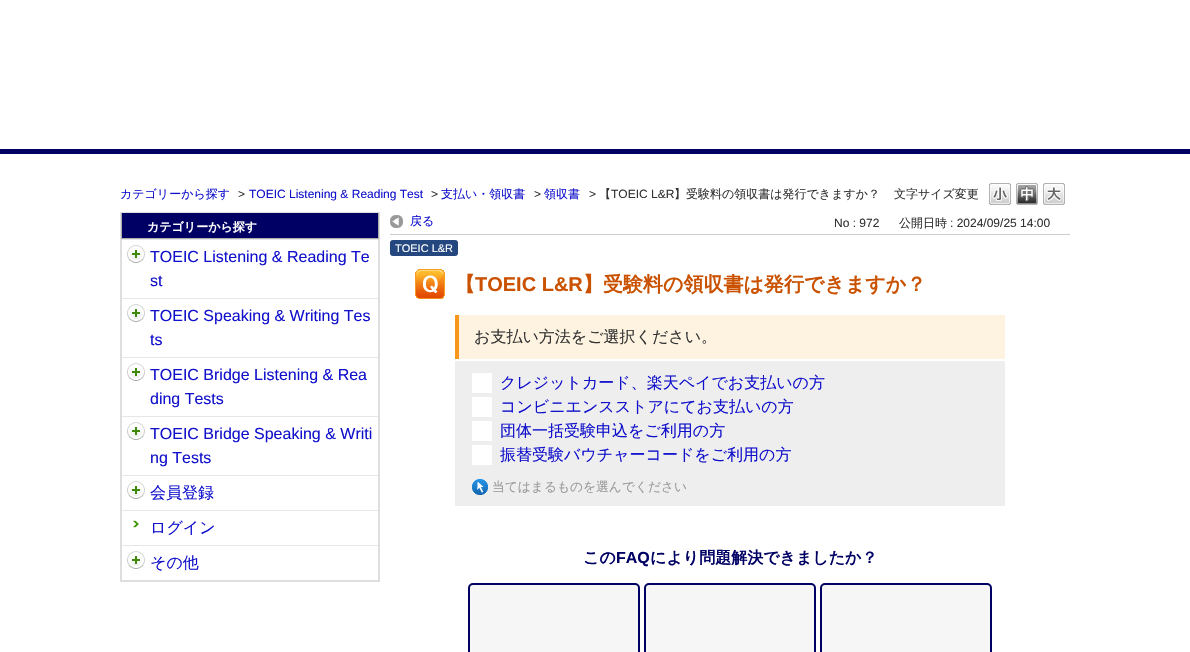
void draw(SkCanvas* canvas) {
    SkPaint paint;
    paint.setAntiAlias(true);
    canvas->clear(0xFFFFFFFF);
    paint.setColor(0xFF000064);
    canvas->drawRect(SkRect::MakeXYWH(0, 149, 1190, 5), paint);
    SkFont font1(fontMgr->matchFamilyStyle("WenQuanYi Zen Hei", SkFontStyle(500, SkFontStyle::kNormal_Width, SkFontStyle::kUpright_Slant)), 12);
    font1.setSubpixel(true);
    paint.setColor(0xFF1111CC);
    canvas->drawString("カテゴリーから探す", 120, 198, font1, paint);
    SkFont font2(fontMgr->matchFamilyStyle("Liberation Sans", SkFontStyle::Normal()), 12);
    font2.setSubpixel(true);
    paint.setColor(0xFF333333);
    canvas->drawString(">", 238, 198, font2, paint);
    paint.setColor(0xFF1111CC);
    canvas->drawString("TOEIC Listening & Reading Test", 249, 198, font2, paint);
    paint.setColor(0xFF333333);
    canvas->drawString(">", 431, 198, font2, paint);
    paint.setColor(0xFF1111CC);
    canvas->drawString("支払い・領収書", 441, 198, font1, paint);
    paint.setColor(0xFF333333);
    canvas->drawString(">", 534, 198, font2, paint);
    paint.setColor(0xFF1111CC);
    canvas->drawString("領収書", 544, 198, font1, paint);
    paint.setColor(0xFF333333);
    canvas->drawString(">", 589, 198, font2, paint);
    canvas->drawString("【", 599, 198, font1, paint);
    canvas->drawString("TOEIC L&R", 611, 198, font2, paint);
    canvas->drawString("】受験料の領収書は発行できますか？", 674, 198, font1, paint);
    canvas->drawString("文字サイズ変更", 894, 198, font1, paint);
    canvas->drawImageRect(SkImages::DeferredFromEncodedData(SkData::MakeFromFileName("img1.png")), SkRect::MakeXYWH(989, 183, 22, 22), SkSamplingOptions());
    canvas->drawImageRect(SkImages::DeferredFromEncodedData(SkData::MakeFromFileName("img2.png")), SkRect::MakeXYWH(1016, 183, 22, 22), SkSamplingOptions());
    canvas->drawImageRect(SkImages::DeferredFromEncodedData(SkData::MakeFromFileName("img3.png")), SkRect::MakeXYWH(1043, 183, 22, 22), SkSamplingOptions());
    paint.setColor(0xFFDEDEDE);
    canvas->drawRect(SkRect::MakeXYWH(120, 212, 260, 370), paint);
    paint.setColor(0xFF000064);
    canvas->drawRect(SkRect::MakeXYWH(122, 213, 256, 25), paint);
    paint.setColor(0xFFADADAD);
    canvas->drawRect(SkRect::MakeXYWH(378, 213, 1, 26), paint);
    canvas->drawRect(SkRect::MakeXYWH(121, 238, 258, 1), paint);
    canvas->drawRect(SkRect::MakeXYWH(121, 213, 1, 26), paint);
    SkFont font3(fontMgr->matchFamilyStyle("WenQuanYi Zen Hei", SkFontStyle::Bold()), 12);
    font3.setSubpixel(true);
    paint.setColor(0xFFFFFFFF);
    canvas->drawString("カテゴリーから探す", 147, 231, font3, paint);
    canvas->drawRect(SkRect::MakeXYWH(122, 240, 256, 340), paint);
    paint.setColor(0xFFE6E6E6);
    canvas->drawRect(SkRect::MakeXYWH(122, 239, 256, 1), paint);
    canvas->drawImageRect(SkImages::DeferredFromEncodedData(SkData::MakeFromFileName("img4.png")), SkRect::MakeXYWH(127, 245, 18, 18), SkSamplingOptions());
    SkFont font4(fontMgr->matchFamilyStyle("Liberation Sans", SkFontStyle::Normal()), 16);
    font4.setSubpixel(true);
    paint.setColor(0xFF1111CC);
    canvas->drawString("TOEIC Listening & Reading Te", 150, 262, font4, paint);
    canvas->drawString("st", 150, 286, font4, paint);
    paint.setColor(0xFFE6E6E6);
    canvas->drawRect(SkRect::MakeXYWH(122, 298, 256, 1), paint);
    canvas->drawImageRect(SkImages::DeferredFromEncodedData(SkData::MakeFromFileName("img4.png")), SkRect::MakeXYWH(127, 304, 18, 18), SkSamplingOptions());
    paint.setColor(0xFF1111CC);
    canvas->drawString("TOEIC Speaking & Writing Tes", 150, 321, font4, paint);
    canvas->drawString("ts", 150, 345, font4, paint);
    paint.setColor(0xFFE6E6E6);
    canvas->drawRect(SkRect::MakeXYWH(122, 357, 256, 1), paint);
    canvas->drawImageRect(SkImages::DeferredFromEncodedData(SkData::MakeFromFileName("img4.png")), SkRect::MakeXYWH(127, 363, 18, 18), SkSamplingOptions());
    paint.setColor(0xFF1111CC);
    canvas->drawString("TOEIC Bridge Listening & Rea", 150, 380, font4, paint);
    canvas->drawString("ding Tests", 150, 404, font4, paint);
    paint.setColor(0xFFE6E6E6);
    canvas->drawRect(SkRect::MakeXYWH(122, 416, 256, 1), paint);
    canvas->drawImageRect(SkImages::DeferredFromEncodedData(SkData::MakeFromFileName("img4.png")), SkRect::MakeXYWH(127, 422, 18, 18), SkSamplingOptions());
    paint.setColor(0xFF1111CC);
    canvas->drawString("TOEIC Bridge Speaking & Writi", 150, 439, font4, paint);
    canvas->drawString("ng Tests", 150, 463, font4, paint);
    paint.setColor(0xFFE6E6E6);
    canvas->drawRect(SkRect::MakeXYWH(122, 475, 256, 1), paint);
    canvas->drawImageRect(SkImages::DeferredFromEncodedData(SkData::MakeFromFileName("img4.png")), SkRect::MakeXYWH(127, 481, 18, 18), SkSamplingOptions());
    SkFont font5(fontMgr->matchFamilyStyle("WenQuanYi Zen Hei", SkFontStyle(500, SkFontStyle::kNormal_Width, SkFontStyle::kUpright_Slant)), 16);
    font5.setSubpixel(true);
    paint.setColor(0xFF1111CC);
    canvas->drawString("会員登録", 150, 498, font5, paint);
    paint.setColor(0xFFE6E6E6);
    canvas->drawRect(SkRect::MakeXYWH(122, 510, 256, 1), paint);
    canvas->drawImageRect(SkImages::DeferredFromEncodedData(SkData::MakeFromFileName("img5.png")), SkRect::MakeXYWH(133, 520, 6, 8), SkSamplingOptions());
    paint.setColor(0xFF1111CC);
    canvas->drawString("ログイン", 150, 533, font5, paint);
    paint.setColor(0xFFE6E6E6);
    canvas->drawRect(SkRect::MakeXYWH(122, 545, 256, 1), paint);
    canvas->drawImageRect(SkImages::DeferredFromEncodedData(SkData::MakeFromFileName("img4.png")), SkRect::MakeXYWH(127, 551, 18, 18), SkSamplingOptions());
    paint.setColor(0xFF1111CC);
    canvas->drawString("その他", 150, 568, font5, paint);
    paint.setColor(0xFFCCCCCC);
    canvas->drawRect(SkRect::MakeXYWH(390, 234, 680, 1), paint);
    canvas->drawImageRect(SkImages::DeferredFromEncodedData(SkData::MakeFromFileName("img6.png")), SkRect::MakeXYWH(390, 215, 13, 13), SkSamplingOptions());
    paint.setColor(0xFF1111CC);
    canvas->drawString("戻る", 410, 225, font1, paint);
    paint.setColor(0xFF333333);
    canvas->drawString("No : 972", 834, 227, font2, paint);
    canvas->drawString("公開日時", 899, 227, font1, paint);
    canvas->drawString(": 2024/09/25 14:00", 950, 227, font2, paint);
    paint.setColor(0xFF23477E);
    canvas->drawRoundRect(SkRect::MakeXYWH(390, 240, 68, 16), 3, 3, paint);
    SkFont font6(fontMgr->matchFamilyStyle("Liberation Sans", SkFontStyle::Normal()), 11);
    font6.setSubpixel(true);
    paint.setColor(0xFFFFFFFF);
    canvas->drawString("TOEIC L&R", 395, 252, font6, paint);
    canvas->drawImageRect(SkImages::DeferredFromEncodedData(SkData::MakeFromFileName("img7.png")), SkRect::MakeXYWH(415, 269, 30, 30), SkSamplingOptions());
    SkFont font7(fontMgr->matchFamilyStyle("WenQuanYi Zen Hei", SkFontStyle::Bold()), 20);
    font7.setSubpixel(true);
    paint.setColor(0xFFC95100);
    canvas->drawString("【", 455, 291, font7, paint);
    SkFont font8(fontMgr->matchFamilyStyle("Liberation Sans", SkFontStyle::Bold()), 20);
    font8.setSubpixel(true);
    canvas->drawString("TOEIC L&R", 475, 291, font8, paint);
    canvas->drawString("】受験料の領収書は発行できますか？", 583, 291, font7, paint);
    paint.setColor(0xFFFEF3E0);
    canvas->drawRect(SkRect::MakeXYWH(459, 315, 546, 44), paint);
    paint.setColor(0xFFF8961C);
    canvas->drawRect(SkRect::MakeXYWH(455, 315, 4, 44), paint);
    paint.setColor(0xFF333333);
    canvas->drawString("お支払い方法をご選択ください。", 474, 342, font5, paint);
    paint.setColor(0xFFEEEEEE);
    canvas->drawRect(SkRect::MakeXYWH(455, 361, 550, 145), paint);
    paint.setColor(0xFFFFFFFF);
    canvas->drawRect(SkRect::MakeXYWH(472, 373, 20, 20), paint);
    paint.setColor(0xFF1111CC);
    canvas->drawString("クレジットカード、楽天ペイでお支払いの方", 500, 388, font5, paint);
    paint.setColor(0xFFFFFFFF);
    canvas->drawRect(SkRect::MakeXYWH(472, 397, 20, 20), paint);
    paint.setColor(0xFF1111CC);
    canvas->drawString("コンビニエンスストアにてお支払いの方", 500, 412, font5, paint);
    paint.setColor(0xFFFFFFFF);
    canvas->drawRect(SkRect::MakeXYWH(472, 421, 20, 20), paint);
    paint.setColor(0xFF1111CC);
    canvas->drawString("団体一括受験申込をご利用の方", 500, 436, font5, paint);
    paint.setColor(0xFFFFFFFF);
    canvas->drawRect(SkRect::MakeXYWH(472, 445, 20, 20), paint);
    paint.setColor(0xFF1111CC);
    canvas->drawString("振替受験バウチャーコードをご利用の方", 500, 460, font5, paint);
    canvas->drawImageRect(SkImages::DeferredFromEncodedData(SkData::MakeFromFileName("img8.png")), SkRect::MakeXYWH(472, 479, 16, 16), SkSamplingOptions());
    SkFont font9(fontMgr->matchFamilyStyle("WenQuanYi Zen Hei", SkFontStyle(500, SkFontStyle::kNormal_Width, SkFontStyle::kUpright_Slant)), 12.75f);
    font9.setSubpixel(true);
    paint.setColor(0xFF999999);
    canvas->drawString("当てはまるものを選んでください", 492, 491, font9, paint);
    SkFont font10(fontMgr->matchFamilyStyle("WenQuanYi Zen Hei", SkFontStyle::Bold()), 16);
    font10.setSubpixel(true);
    paint.setColor(0xFF000064);
    canvas->drawString("この", 583, 563, font10, paint);
    SkFont font11(fontMgr->matchFamilyStyle("Liberation Sans", SkFontStyle::Bold()), 16);
    font11.setSubpixel(true);
    canvas->drawString("FAQ", 616, 563, font11, paint);
    canvas->drawString("により問題解決できましたか？", 650, 563, font10, paint);
    paint.setColor(0xFFF6F6F6);
    canvas->drawRoundRect(SkRect::MakeXYWH(469, 584, 170, 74), 4, 4, paint);
    paint.setStyle(SkPaint::kStroke_Style);
    paint.setStrokeWidth(2);
    paint.setColor(0xFF000064);
    canvas->drawRoundRect(SkRect::MakeXYWH(469, 584, 170, 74), 4, 4, paint);
    paint.setStyle(SkPaint::kFill_Style);
    paint.setColor(0xFFF6F6F6);
    canvas->drawRoundRect(SkRect::MakeXYWH(645, 584, 170, 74), 4, 4, paint);
    paint.setStyle(SkPaint::kStroke_Style);
    paint.setColor(0xFF000064);
    canvas->drawRoundRect(SkRect::MakeXYWH(645, 584, 170, 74), 4, 4, paint);
    paint.setStyle(SkPaint::kFill_Style);
    paint.setColor(0xFFF6F6F6);
    canvas->drawRoundRect(SkRect::MakeXYWH(821, 584, 170, 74), 4, 4, paint);
    paint.setStyle(SkPaint::kStroke_Style);
    paint.setColor(0xFF000064);
    canvas->drawRoundRect(SkRect::MakeXYWH(821, 584, 170, 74), 4, 4, paint);
}
